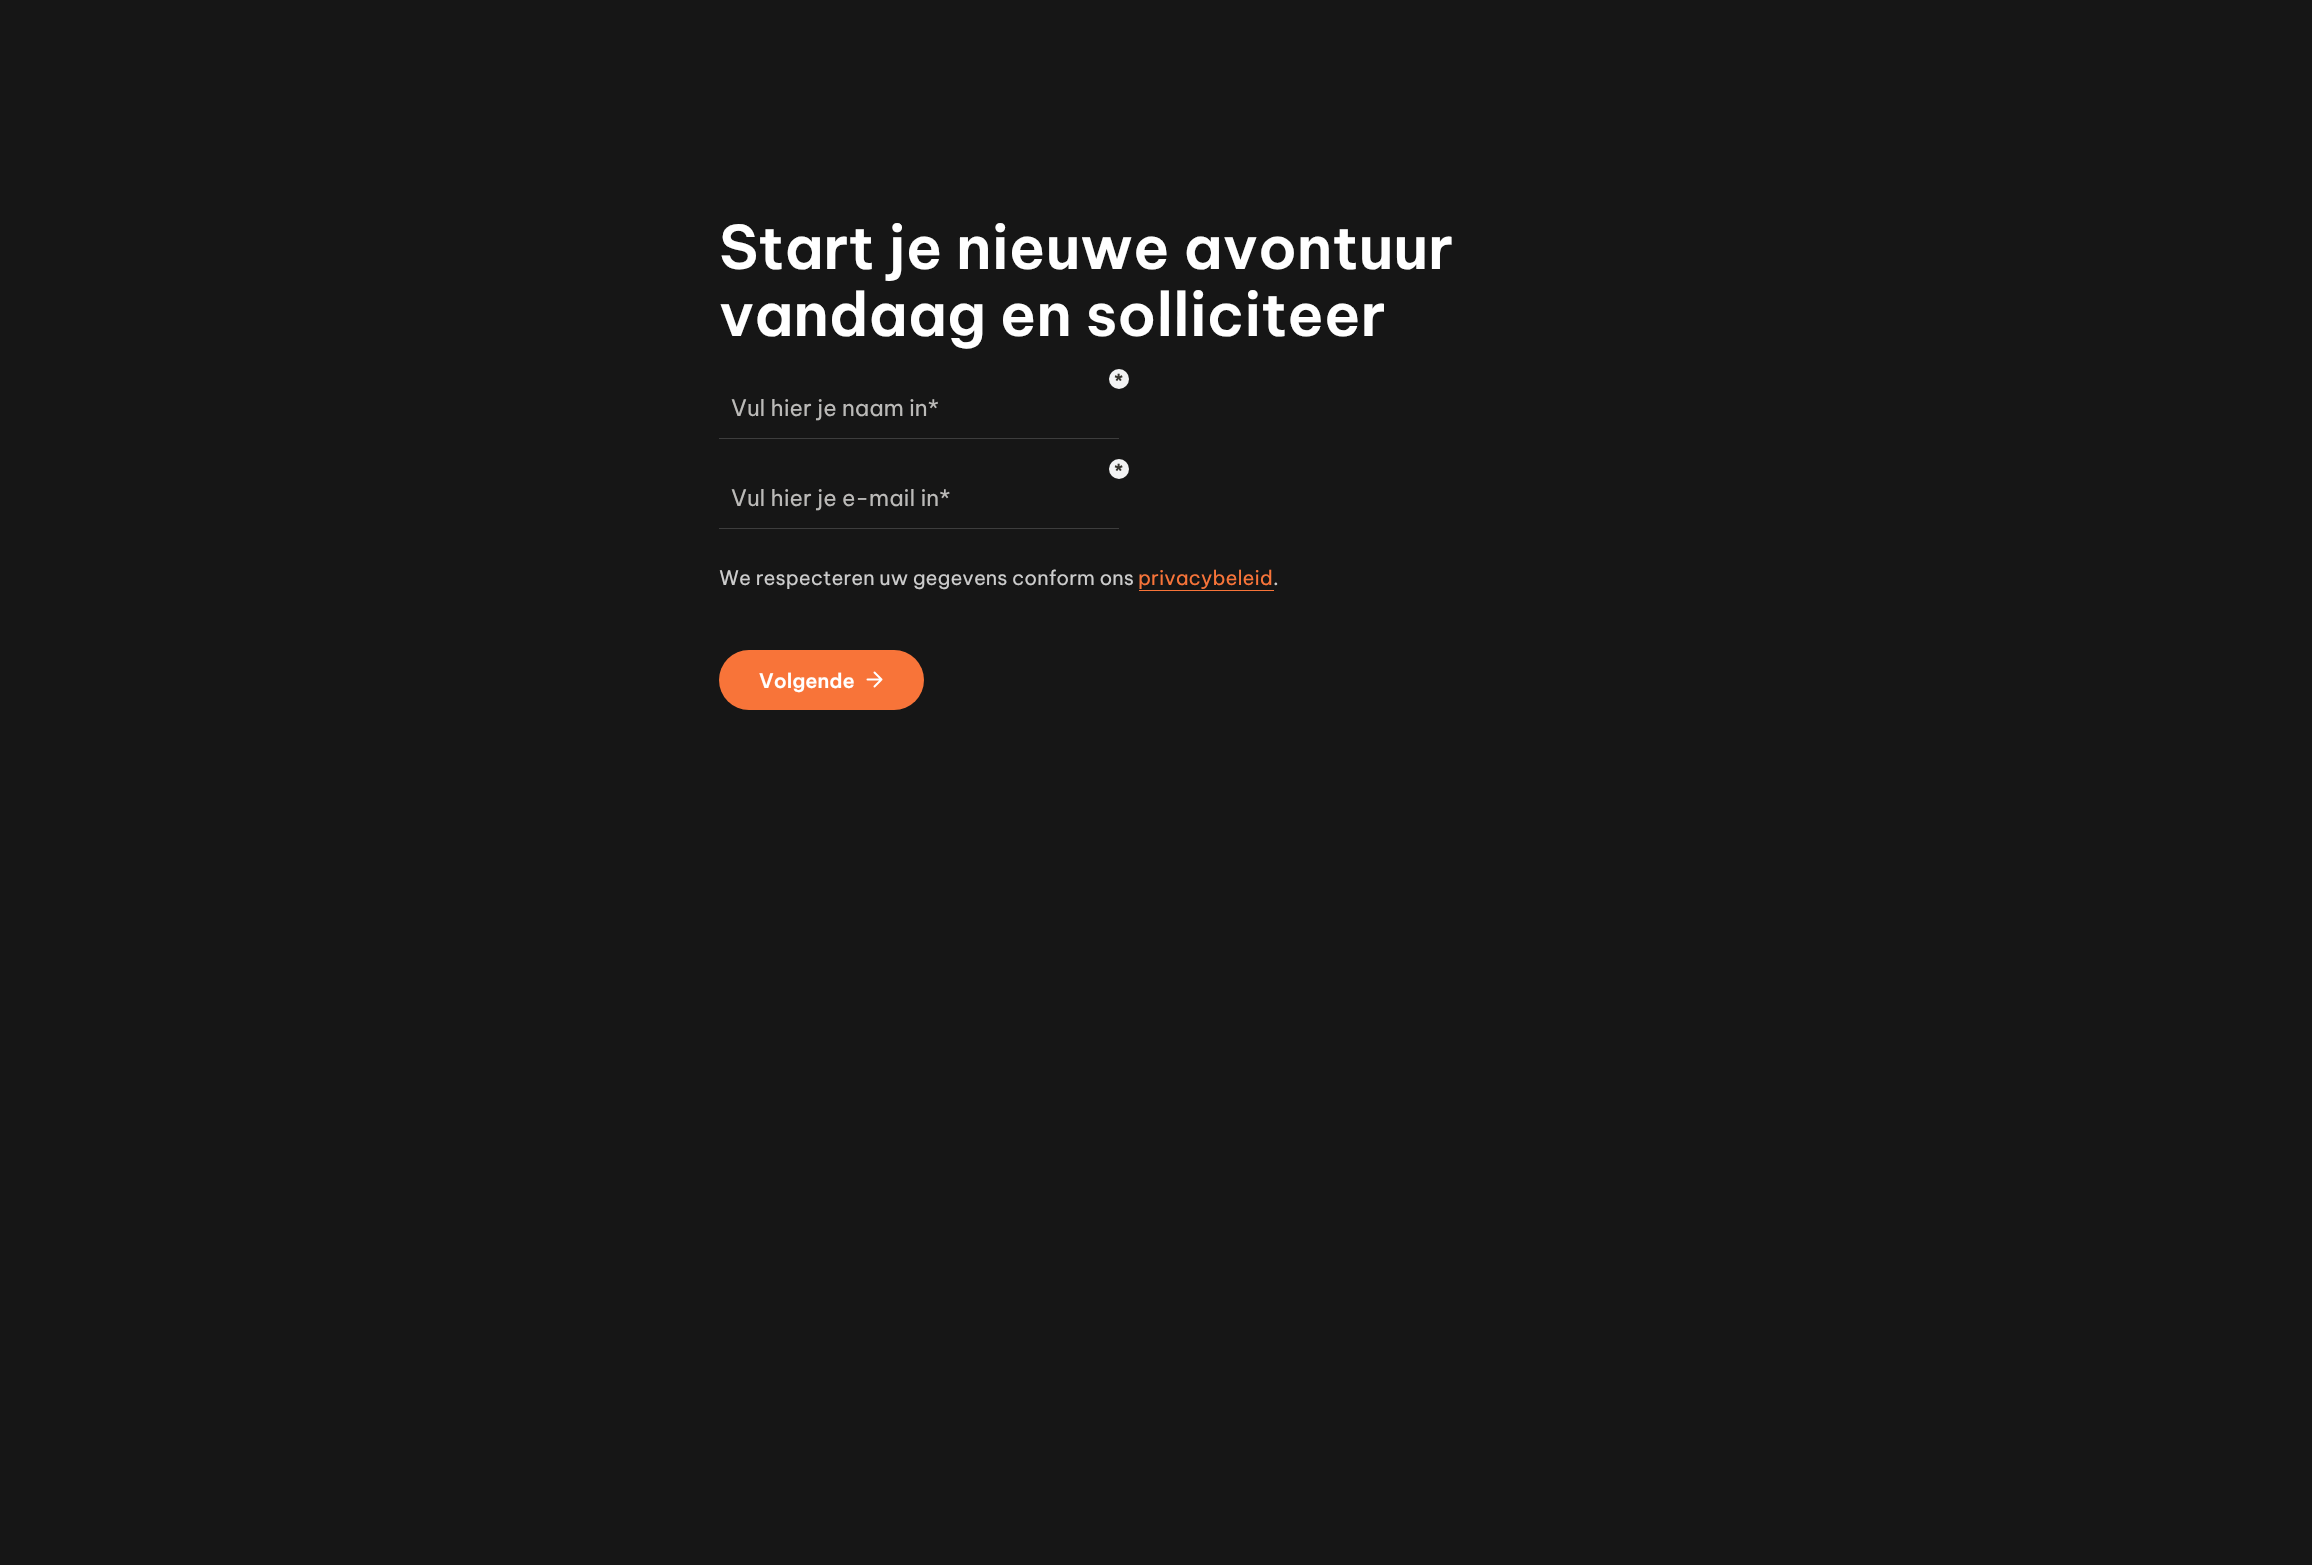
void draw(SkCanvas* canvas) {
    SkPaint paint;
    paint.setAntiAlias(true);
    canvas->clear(0xFF161616);
    SkFont font1(fontMgr->matchFamilyStyle("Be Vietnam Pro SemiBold", SkFontStyle(600, SkFontStyle::kNormal_Width, SkFontStyle::kUpright_Slant)), 60);
    font1.setSubpixel(true);
    paint.setColor(0xFFFFFFFF);
    canvas->drawString("Start je nieuwe avontuur", 719, 269, font1, paint);
    canvas->drawString("vandaag en solliciteer", 719, 336, font1, paint);
    paint.setColor(0xFFF3F3F3);
    canvas->drawCircle(1119, 379, 10, paint);
    SkFont font2(fontMgr->matchFamilyStyle("Be Vietnam Pro", SkFontStyle::Bold()), 18);
    font2.setSubpixel(true);
    paint.setColor(0xFF37352F);
    canvas->drawString("*", 1114, 387, font2, paint);
    paint.setColor(0xFF3D3D3D);
    canvas->drawRect(SkRect::MakeXYWH(719, 438, 400, 1), paint);
    SkFont font3(fontMgr->matchFamilyStyle("Be Vietnam Pro", SkFontStyle::Normal()), 22.5f);
    font3.setSubpixel(true);
    paint.setColor(0xFFBBBAB8);
    canvas->drawString("Vul hier je naam in*", 731, 416, font3, paint);
    paint.setColor(0xFFF3F3F3);
    canvas->drawCircle(1119, 469, 10, paint);
    paint.setColor(0xFF37352F);
    canvas->drawString("*", 1114, 477, font2, paint);
    paint.setColor(0xFF3D3D3D);
    canvas->drawRect(SkRect::MakeXYWH(719, 528, 400, 1), paint);
    paint.setColor(0xFFBBBAB8);
    canvas->drawString("Vul hier je e-mail in*", 731, 506, font3, paint);
    SkFont font4(fontMgr->matchFamilyStyle("Be Vietnam Pro", SkFontStyle::Normal()), 20);
    font4.setSubpixel(true);
    paint.setColor(0xFFCCCCCC);
    canvas->drawString("We respecteren uw gegevens conform ons", 719, 585, font4, paint);
    paint.setColor(0xFFF87439);
    canvas->drawString("privacybeleid", 1138, 585, font4, paint);
    canvas->drawRect(SkRect::MakeXYWH(1139, 590, 135, 1), paint);
    paint.setColor(0xFFCCCCCC);
    canvas->drawString(".", 1273, 585, font4, paint);
    paint.setColor(0xFFF87439);
    canvas->drawRoundRect(SkRect::MakeXYWH(719, 650, 205, 60), 30, 30, paint);
    SkFont font5(fontMgr->matchFamilyStyle("Be Vietnam Pro SemiBold", SkFontStyle(600, SkFontStyle::kNormal_Width, SkFontStyle::kUpright_Slant)), 20);
    font5.setSubpixel(true);
    paint.setColor(0xFFFFFFFF);
    canvas->drawString("Volgende", 759, 688, font5, paint);
    paint.setStyle(SkPaint::kStroke_Style);
    paint.setStrokeWidth(2);
    paint.setStrokeCap(SkPaint::kRound_Cap);
    paint.setStrokeJoin(SkPaint::kRound_Join);
    canvas->drawPath(SkPathBuilder().moveTo(867.5f, 679.5f).lineTo(881.5f, 679.5f).moveTo(874.5f, 672.5f).lineTo(881.5f, 679.5f).lineTo(874.5f, 686.5f).detach(), paint);
}
